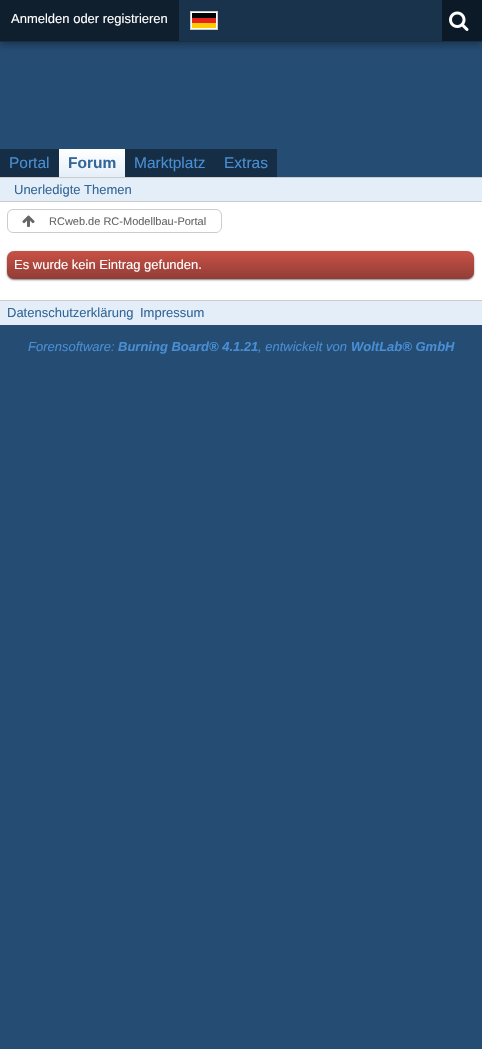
void draw(SkCanvas* canvas) {
    SkPaint paint;
    paint.setAntiAlias(true);
    canvas->clear(0xFF254C73);
    paint.setColor(0x4D000000);
    paint.setMaskFilter(SkMaskFilter::MakeBlur(kNormal_SkBlurStyle, 3.5f));
    canvas->drawRect(SkRect::MakeXYWH(0, 3, 482, 42), paint);
    paint.setMaskFilter(nullptr);
    paint.setColor(0xFF19334C);
    canvas->drawRect(SkRect::MakeXYWH(179, 0, 263, 41), paint);
    paint.setColor(0xFF172E44);
    canvas->drawRect(SkRect::MakeXYWH(0, 41, 482, 1), paint);
    paint.setColor(0xFF0F1F2E);
    canvas->drawRect(SkRect::MakeXYWH(0, 0, 179, 41), paint);
    SkFont font1(fontMgr->matchFamilyStyle("Liberation Sans", SkFontStyle::Normal()), 13);
    font1.setSubpixel(true);
    paint.setColor(0xFFFFFFFF);
    canvas->drawString("Anmelden oder registrieren", 11, 23, font1, paint);
    canvas->drawRect(SkRect::MakeXYWH(190.5f, 11.5f, 27, 18), paint);
    paint.setStyle(SkPaint::kStroke_Style);
    paint.setStrokeWidth(1);
    paint.setColor(0xFFCCCCCC);
    canvas->drawRect(SkRect::MakeXYWH(190.5f, 11.5f, 27, 18), paint);
    paint.setStyle(SkPaint::kFill_Style);
    paint.setColor(0xFF010202);
    canvas->drawRect(SkRect::MakeXYWH(192, 13, 24, 5), paint);
    paint.setColor(0xFFE52420);
    canvas->drawRect(SkRect::MakeXYWH(192, 18, 24, 5), paint);
    paint.setColor(0xFFFFCC04);
    canvas->drawRect(SkRect::MakeXYWH(192, 23, 24, 5), paint);
    paint.setColor(0xFF0C1926);
    canvas->drawRect(SkRect::MakeXYWH(442, 0, 40, 41), paint);
    canvas->drawImageRect(SkImages::DeferredFromEncodedData(SkData::MakeFromFileName("img1.png")), SkRect::MakeXYWH(449, 11, 20, 20), SkSamplingOptions());
    paint.setColor(0xFF162E45);
    canvas->drawRect(SkRect::MakeXYWH(0, 149, 277, 28), paint);
    SkFont font2(fontMgr->matchFamilyStyle("Liberation Sans", SkFontStyle::Normal()), 15.5f);
    font2.setSubpixel(true);
    paint.setColor(0xFF488ED4);
    canvas->drawString("Portal", 9, 168, font2, paint);
    {
        const SkColor colors[] = {0xFFFFFFFF, 0xFFE4EEF8};
        const float stops[] = {0, 1};
        const SkPoint ends[] = {{92, 149}, {92, 178}};
        paint.setShader(SkGradientShader::MakeLinear(ends, colors, stops, 2, SkTileMode::kClamp));
        paint.setAlpha(255);
    }
    canvas->drawRect(SkRect::MakeXYWH(59, 149, 66, 28), paint);
    SkFont font3(fontMgr->matchFamilyStyle("Liberation Sans", SkFontStyle::Bold()), 15.5f);
    font3.setSubpixel(true);
    paint.setShader(nullptr);
    paint.setColor(0xFF336699);
    canvas->drawString("Forum", 68, 168, font3, paint);
    paint.setColor(0xFF488ED4);
    canvas->drawString("Marktplatz", 134, 168, font2, paint);
    canvas->drawString("Extras", 224, 168, font2, paint);
    paint.setColor(0xFFE4EEF8);
    canvas->drawRect(SkRect::MakeXYWH(0, 178, 482, 23), paint);
    paint.setColor(0xFFCCCCCC);
    canvas->drawRect(SkRect::MakeXYWH(0, 177, 482, 1), paint);
    canvas->drawRect(SkRect::MakeXYWH(0, 201, 482, 1), paint);
    paint.setColor(0xFF336699);
    canvas->drawString("Unerledigte Themen", 14, 194, font1, paint);
    paint.setColor(0xFFFFFFFF);
    canvas->drawRect(SkRect::MakeXYWH(0, 202, 482, 98), paint);
    paint.setStyle(SkPaint::kStroke_Style);
    paint.setColor(0xFFCCCCCC);
    canvas->drawRoundRect(SkRect::MakeXYWH(7.5f, 209.5f, 214, 23), 5.5f, 5.5f, paint);
    canvas->drawImageRect(SkImages::DeferredFromEncodedData(SkData::MakeFromFileName("img2.png")), SkRect::MakeXYWH(22, 215, 13, 12), SkSamplingOptions());
    SkFont font4(fontMgr->matchFamilyStyle("Liberation Sans", SkFontStyle::Normal()), 11);
    font4.setSubpixel(true);
    paint.setStyle(SkPaint::kFill_Style);
    paint.setColor(0xFF666666);
    canvas->drawString("RCweb.de RC-Modellbau-Portal", 49, 225, font4, paint);
    paint.setColor(0x80000000);
    paint.setMaskFilter(SkMaskFilter::MakeBlur(kNormal_SkBlurStyle, 1));
    canvas->drawRoundRect(SkRect::MakeXYWH(7, 252, 467, 28), 7, 7, paint);
    paint.setMaskFilter(nullptr);
    {
        const SkColor colors[] = {0xFFC95145, 0xFF913D37};
        const float stops[] = {0, 1};
        const SkPoint ends[] = {{241, 251}, {241, 279}};
        paint.setShader(SkGradientShader::MakeLinear(ends, colors, stops, 2, SkTileMode::kClamp));
        paint.setAlpha(255);
    }
    canvas->drawRoundRect(SkRect::MakeXYWH(7, 251, 467, 28), 7, 7, paint);
    paint.setShader(nullptr);
    paint.setColor(0xFFFFFFFF);
    canvas->drawString("Es wurde kein Eintrag gefunden.", 14, 269, font1, paint);
    paint.setColor(0xFFE4EEF8);
    canvas->drawRect(SkRect::MakeXYWH(0, 301, 482, 24), paint);
    paint.setColor(0xFFCCCCCC);
    canvas->drawRect(SkRect::MakeXYWH(0, 300, 482, 1), paint);
    paint.setColor(0xFF336699);
    canvas->drawString("Datenschutzerklärung", 7, 317, font1, paint);
    canvas->drawString("Impressum", 140, 317, font1, paint);
    SkFont font5(fontMgr->matchFamilyStyle("Liberation Sans", SkFontStyle::Italic()), 13);
    font5.setSubpixel(true);
    paint.setColor(0xFF488ED4);
    canvas->drawString("Forensoftware:", 28, 351, font5, paint);
    SkFont font6(fontMgr->matchFamilyStyle("Liberation Sans", SkFontStyle::BoldItalic()), 13);
    font6.setSubpixel(true);
    canvas->drawString("Burning Board® 4.1.21", 118, 351, font6, paint);
    canvas->drawString(", entwickelt von", 258, 351, font5, paint);
    canvas->drawString("WoltLab® GmbH", 351, 351, font6, paint);
}
